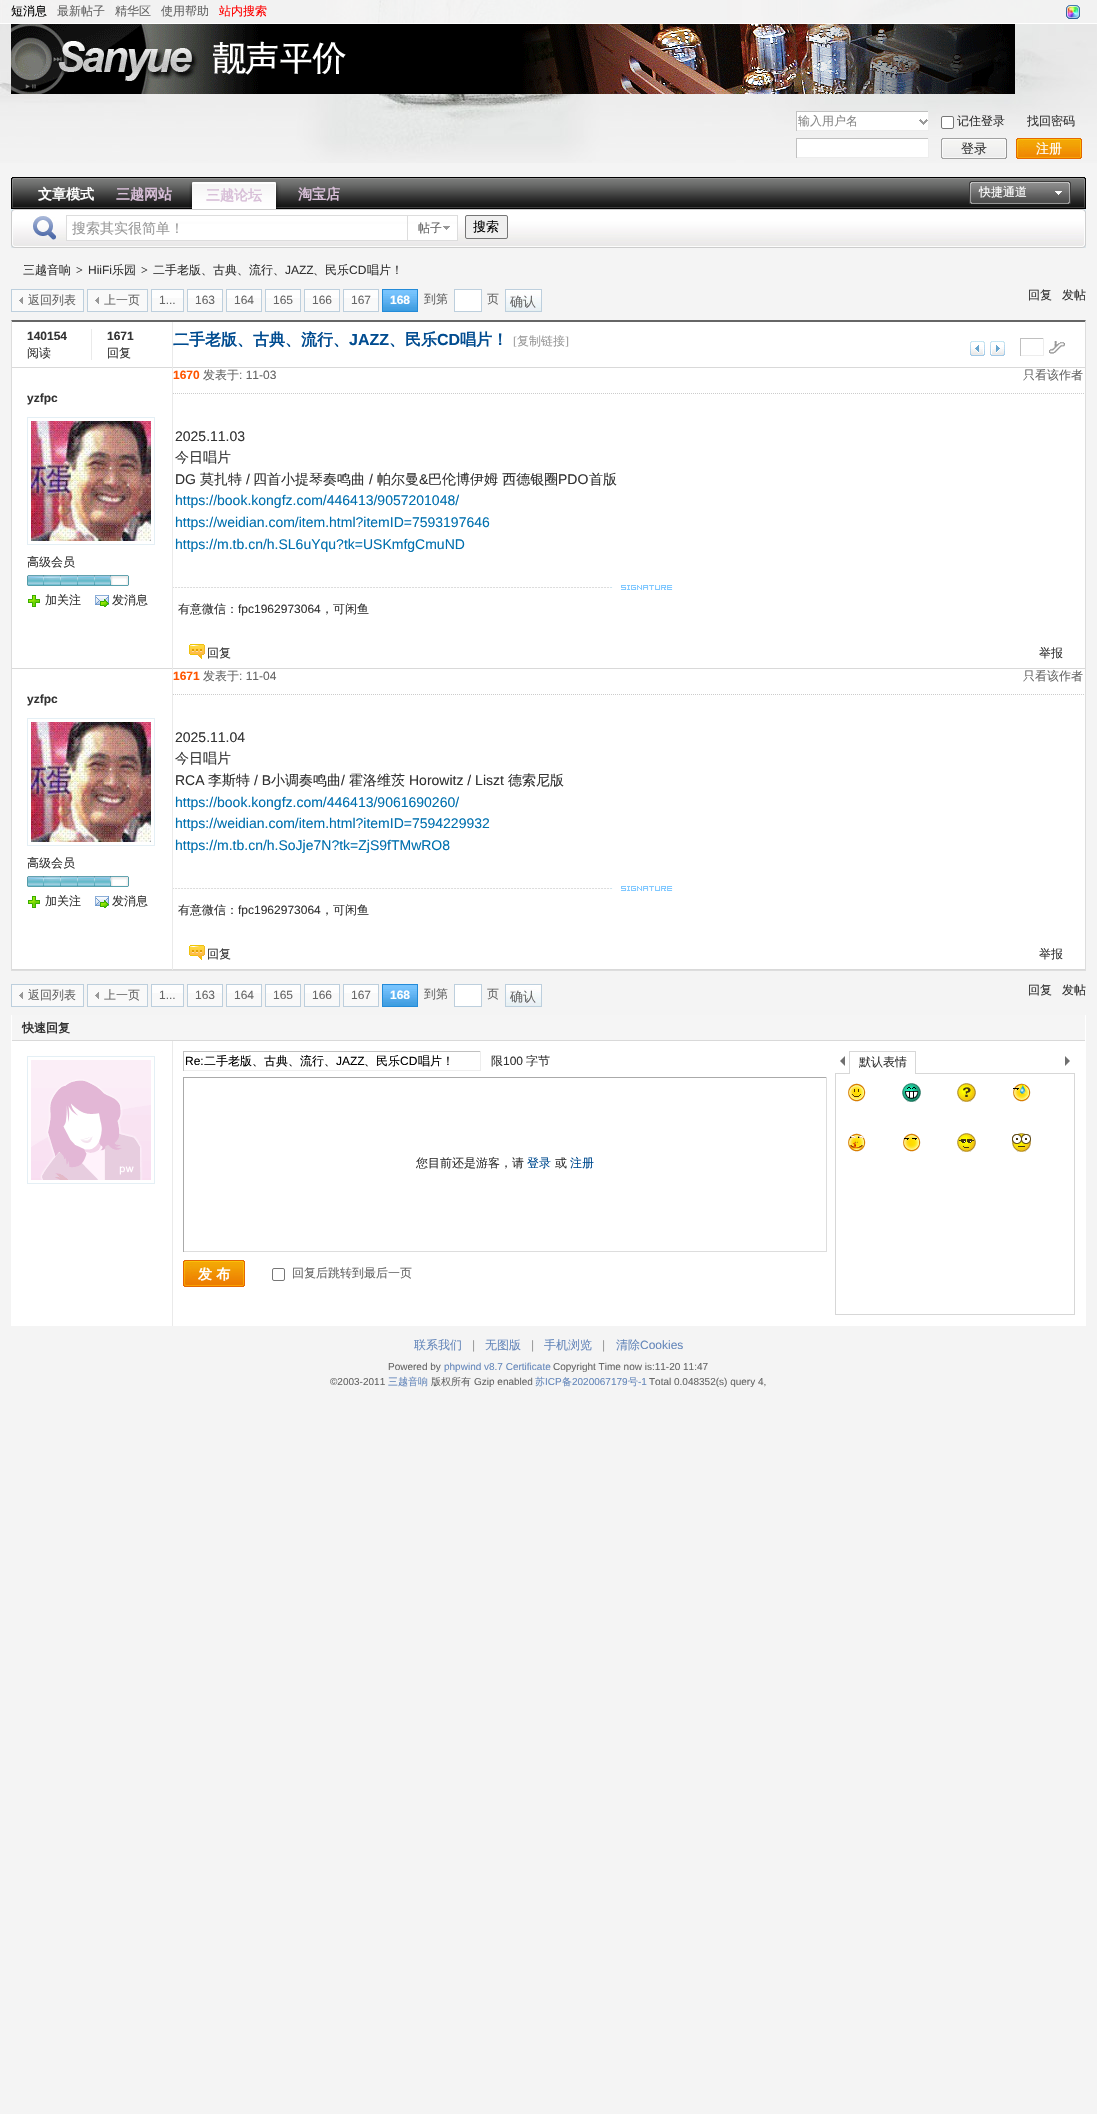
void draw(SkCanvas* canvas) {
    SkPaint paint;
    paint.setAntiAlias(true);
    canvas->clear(0xFFF4F4F4);
    canvas->drawImageRect(SkImages::DeferredFromEncodedData(SkData::MakeFromFileName("img1.png")), SkRect::MakeXYWH(0, 0, 1097, 163), SkSamplingOptions());
    canvas->drawImageRect(SkImages::DeferredFromEncodedData(SkData::MakeFromFileName("img2.png")), SkRect::MakeXYWH(0, 0, 1097, 23), SkSamplingOptions());
    paint.setColor(0xFFFFFFFF);
    canvas->drawRect(SkRect::MakeXYWH(0, 23, 1097, 1), paint);
    SkFont font1(fontMgr->matchFamilyStyle("WenQuanYi Zen Hei", SkFontStyle(500, SkFontStyle::kNormal_Width, SkFontStyle::kUpright_Slant)), 12);
    font1.setSubpixel(true);
    paint.setColor(0xFF000000);
    canvas->drawString("短消息", 11, 15, font1, paint);
    paint.setColor(0xFF666666);
    canvas->drawString("最新帖子", 57, 15, font1, paint);
    canvas->drawString("精华区", 115, 15, font1, paint);
    canvas->drawString("使用帮助", 161, 15, font1, paint);
    paint.setColor(0xFFFF0000);
    canvas->drawString("站内搜索", 219, 15, font1, paint);
    canvas->drawImageRect(SkImages::DeferredFromEncodedData(SkData::MakeFromFileName("img3.png")), SkRect::MakeXYWH(1066, 5, 14, 14), SkSamplingOptions());
    canvas->drawImageRect(SkImages::DeferredFromEncodedData(SkData::MakeFromFileName("img4.png")), SkRect::MakeXYWH(11, 24, 1004, 70), SkSamplingOptions());
    paint.setColor(0xFFFFFFFF);
    canvas->drawRect(SkRect::MakeXYWH(797, 112, 131, 18), paint);
    paint.setColor(0xFFC0C0C0);
    canvas->drawRect(SkRect::MakeXYWH(796, 111, 133, 1), paint);
    paint.setColor(0xFFEDEDED);
    canvas->drawRect(SkRect::MakeXYWH(928, 111, 1, 20), paint);
    canvas->drawRect(SkRect::MakeXYWH(796, 130, 133, 1), paint);
    paint.setColor(0xFFC0C0C0);
    canvas->drawRect(SkRect::MakeXYWH(796, 111, 1, 20), paint);
    paint.setColor(0xFF888888);
    canvas->drawString("输入用户名", 798, 125, font1, paint);
    canvas->drawImageRect(SkImages::DeferredFromEncodedData(SkData::MakeFromFileName("img5.png")), SkRect::MakeXYWH(919, 119, 9, 6), SkSamplingOptions());
    paint.setColor(0xFFFFFFFF);
    canvas->drawRect(SkRect::MakeXYWH(797, 139, 131, 18), paint);
    paint.setColor(0xFFC0C0C0);
    canvas->drawRect(SkRect::MakeXYWH(796, 138, 133, 1), paint);
    paint.setColor(0xFFEDEDED);
    canvas->drawRect(SkRect::MakeXYWH(928, 138, 1, 20), paint);
    canvas->drawRect(SkRect::MakeXYWH(796, 157, 133, 1), paint);
    paint.setColor(0xFFC0C0C0);
    canvas->drawRect(SkRect::MakeXYWH(796, 138, 1, 20), paint);
    paint.setColor(0xFFFFFFFF);
    canvas->drawRoundRect(SkRect::MakeXYWH(941.5f, 116.5f, 12, 12), 1.5f, 1.5f, paint);
    paint.setStyle(SkPaint::kStroke_Style);
    paint.setStrokeWidth(1);
    paint.setColor(0xFF767676);
    canvas->drawRoundRect(SkRect::MakeXYWH(941.5f, 116.5f, 12, 12), 1.5f, 1.5f, paint);
    paint.setStyle(SkPaint::kFill_Style);
    paint.setColor(0xFF333333);
    canvas->drawString("记住登录", 957, 125, font1, paint);
    canvas->drawImageRect(SkImages::DeferredFromEncodedData(SkData::MakeFromFileName("img6.png")), SkRect::MakeXYWH(1005, 138, 2, 21), SkSamplingOptions());
    canvas->drawImageRect(SkImages::DeferredFromEncodedData(SkData::MakeFromFileName("img7.png")), SkRect::MakeXYWH(941, 138, 64, 21), SkSamplingOptions());
    SkFont font2(fontMgr->matchFamilyStyle("WenQuanYi Zen Hei", SkFontStyle(500, SkFontStyle::kNormal_Width, SkFontStyle::kUpright_Slant)), 13);
    font2.setSubpixel(true);
    canvas->drawString("登录", 961, 153, font2, paint);
    canvas->drawString("找回密码", 1027, 125, font1, paint);
    canvas->drawImageRect(SkImages::DeferredFromEncodedData(SkData::MakeFromFileName("img8.png")), SkRect::MakeXYWH(1080, 138, 2, 21), SkSamplingOptions());
    canvas->drawImageRect(SkImages::DeferredFromEncodedData(SkData::MakeFromFileName("img9.png")), SkRect::MakeXYWH(1016, 138, 64, 21), SkSamplingOptions());
    paint.setColor(0xFFFFFFFF);
    canvas->drawString("注册", 1036, 153, font2, paint);
    canvas->drawImageRect(SkImages::DeferredFromEncodedData(SkData::MakeFromFileName("img10.png")), SkRect::MakeXYWH(11, 177, 5, 32), SkSamplingOptions());
    canvas->drawImageRect(SkImages::DeferredFromEncodedData(SkData::MakeFromFileName("img11.png")), SkRect::MakeXYWH(16, 177, 1065, 32), SkSamplingOptions());
    SkFont font3(fontMgr->matchFamilyStyle("WenQuanYi Zen Hei", SkFontStyle::Bold()), 14);
    font3.setSubpixel(true);
    canvas->drawString("文章模式", 38, 199, font3, paint);
    paint.setColor(0xFFD8BFD8);
    canvas->drawString("三越网站", 116, 199, font3, paint);
    canvas->drawImageRect(SkImages::DeferredFromEncodedData(SkData::MakeFromFileName("img12.png")), SkRect::MakeXYWH(189, 182, 86, 27), SkSamplingOptions());
    canvas->drawImageRect(SkImages::DeferredFromEncodedData(SkData::MakeFromFileName("img13.png")), SkRect::MakeXYWH(275, 182, 6, 27), SkSamplingOptions());
    canvas->drawString("三越论坛", 206, 200, font3, paint);
    canvas->drawString("淘宝店", 298, 199, font3, paint);
    canvas->drawImageRect(SkImages::DeferredFromEncodedData(SkData::MakeFromFileName("img14.png")), SkRect::MakeXYWH(969, 181, 102, 23), SkSamplingOptions());
    paint.setColor(0xFFFFFFFF);
    canvas->drawString("快捷通道", 979, 196, font1, paint);
    canvas->drawImageRect(SkImages::DeferredFromEncodedData(SkData::MakeFromFileName("img15.png")), SkRect::MakeXYWH(1081, 177, 5, 32), SkSamplingOptions());
    canvas->drawImageRect(SkImages::DeferredFromEncodedData(SkData::MakeFromFileName("img16.png")), SkRect::MakeXYWH(11, 209, 1071, 39), SkSamplingOptions());
    canvas->drawRect(SkRect::MakeXYWH(67, 224, 340, 16), paint);
    paint.setColor(0xFFDDDDDD);
    canvas->drawRect(SkRect::MakeXYWH(66, 215, 341, 1), paint);
    canvas->drawRect(SkRect::MakeXYWH(66, 240, 341, 1), paint);
    canvas->drawRect(SkRect::MakeXYWH(66, 215, 1, 26), paint);
    SkFont font4(fontMgr->matchFamilyStyle("WenQuanYi Zen Hei", SkFontStyle(500, SkFontStyle::kNormal_Width, SkFontStyle::kUpright_Slant)), 14);
    font4.setSubpixel(true);
    paint.setColor(0xFF999999);
    canvas->drawString("搜索其实很简单！", 72, 233, font4, paint);
    paint.setColor(0xFFFFFFFF);
    canvas->drawRect(SkRect::MakeXYWH(408, 224, 49, 16), paint);
    paint.setStyle(SkPaint::kStroke_Style);
    paint.setColor(0xFFDDDDDD);
    canvas->drawRect(SkRect::MakeXYWH(407.5f, 215.5f, 50, 25), paint);
    canvas->drawImageRect(SkImages::DeferredFromEncodedData(SkData::MakeFromFileName("img17.png")), SkRect::MakeXYWH(443, 226, 7, 4), SkSamplingOptions());
    paint.setStyle(SkPaint::kFill_Style);
    paint.setColor(0xFF666666);
    canvas->drawString("帖子", 418, 232, font1, paint);
    paint.setColor(0xFFEFEFEF);
    canvas->drawRoundRect(SkRect::MakeXYWH(465.5f, 215.5f, 42, 23), 1.5f, 1.5f, paint);
    paint.setStyle(SkPaint::kStroke_Style);
    paint.setColor(0xFF767676);
    canvas->drawRoundRect(SkRect::MakeXYWH(465.5f, 215.5f, 42, 23), 1.5f, 1.5f, paint);
    paint.setStyle(SkPaint::kFill_Style);
    paint.setColor(0xFF000000);
    canvas->drawString("搜索", 473, 231, font2, paint);
    canvas->drawImageRect(SkImages::DeferredFromEncodedData(SkData::MakeFromFileName("img18.png")), SkRect::MakeXYWH(1082, 209, 4, 39), SkSamplingOptions());
    paint.setColor(0xFF333333);
    canvas->drawString("三越音响", 23, 274, font1, paint);
    SkFont font5(fontMgr->matchFamilyStyle("Liberation Serif", SkFontStyle::Normal()), 12);
    font5.setSubpixel(true);
    canvas->drawString(">", 76, 274, font5, paint);
    SkFont font6(fontMgr->matchFamilyStyle("Liberation Sans", SkFontStyle::Normal()), 12);
    font6.setSubpixel(true);
    canvas->drawString("HiiFi", 88, 274, font6, paint);
    canvas->drawString("乐园", 112, 274, font1, paint);
    canvas->drawString(">", 141, 274, font5, paint);
    canvas->drawString("二手老版、古典、流行、", 153, 274, font1, paint);
    canvas->drawString("JAZZ", 285, 274, font6, paint);
    canvas->drawString("、民乐", 313, 274, font1, paint);
    canvas->drawString("CD", 349, 274, font6, paint);
    canvas->drawString("唱片！", 367, 274, font1, paint);
    paint.setColor(0xFFF9F9F9);
    canvas->drawRect(SkRect::MakeXYWH(12, 290, 71, 21), paint);
    canvas->drawImageRect(SkImages::DeferredFromEncodedData(SkData::MakeFromFileName("img19.png")), SkRect::MakeXYWH(19, 297, 4, 7), SkSamplingOptions());
    paint.setStyle(SkPaint::kStroke_Style);
    paint.setColor(0xFFBDCFDD);
    canvas->drawRect(SkRect::MakeXYWH(11.5f, 289.5f, 72, 22), paint);
    paint.setStyle(SkPaint::kFill_Style);
    paint.setColor(0xFF666666);
    canvas->drawString("返回列表", 28, 304, font1, paint);
    paint.setColor(0xFFF9F9F9);
    canvas->drawRect(SkRect::MakeXYWH(88, 290, 59, 21), paint);
    canvas->drawImageRect(SkImages::DeferredFromEncodedData(SkData::MakeFromFileName("img19.png")), SkRect::MakeXYWH(95, 297, 4, 7), SkSamplingOptions());
    paint.setStyle(SkPaint::kStroke_Style);
    paint.setColor(0xFFBDCFDD);
    canvas->drawRect(SkRect::MakeXYWH(87.5f, 289.5f, 60, 22), paint);
    paint.setStyle(SkPaint::kFill_Style);
    paint.setColor(0xFF666666);
    canvas->drawString("上一页", 104, 304, font1, paint);
    paint.setColor(0xFFF9F9F9);
    canvas->drawRect(SkRect::MakeXYWH(152, 298, 31, 13), paint);
    paint.setColor(0xFFFEFEFE);
    canvas->drawRect(SkRect::MakeXYWH(151, 290, 33, 8), paint);
    paint.setStyle(SkPaint::kStroke_Style);
    paint.setColor(0xFFBDCFDD);
    canvas->drawRect(SkRect::MakeXYWH(151.5f, 289.5f, 32, 22), paint);
    paint.setStyle(SkPaint::kFill_Style);
    paint.setColor(0xFF666666);
    canvas->drawString("1...", 159, 304, font6, paint);
    paint.setColor(0xFFF9F9F9);
    canvas->drawRect(SkRect::MakeXYWH(188, 298, 34, 13), paint);
    paint.setColor(0xFFFEFEFE);
    canvas->drawRect(SkRect::MakeXYWH(187, 290, 36, 8), paint);
    paint.setStyle(SkPaint::kStroke_Style);
    paint.setColor(0xFFBDCFDD);
    canvas->drawRect(SkRect::MakeXYWH(187.5f, 289.5f, 35, 22), paint);
    paint.setStyle(SkPaint::kFill_Style);
    paint.setColor(0xFF666666);
    canvas->drawString("163", 195, 304, font6, paint);
    paint.setColor(0xFFF9F9F9);
    canvas->drawRect(SkRect::MakeXYWH(227, 298, 34, 13), paint);
    paint.setColor(0xFFFEFEFE);
    canvas->drawRect(SkRect::MakeXYWH(226, 290, 36, 8), paint);
    paint.setStyle(SkPaint::kStroke_Style);
    paint.setColor(0xFFBDCFDD);
    canvas->drawRect(SkRect::MakeXYWH(226.5f, 289.5f, 35, 22), paint);
    paint.setStyle(SkPaint::kFill_Style);
    paint.setColor(0xFF666666);
    canvas->drawString("164", 234, 304, font6, paint);
    paint.setColor(0xFFF9F9F9);
    canvas->drawRect(SkRect::MakeXYWH(266, 298, 34, 13), paint);
    paint.setColor(0xFFFEFEFE);
    canvas->drawRect(SkRect::MakeXYWH(265, 290, 36, 8), paint);
    paint.setStyle(SkPaint::kStroke_Style);
    paint.setColor(0xFFBDCFDD);
    canvas->drawRect(SkRect::MakeXYWH(265.5f, 289.5f, 35, 22), paint);
    paint.setStyle(SkPaint::kFill_Style);
    paint.setColor(0xFF666666);
    canvas->drawString("165", 273, 304, font6, paint);
    paint.setColor(0xFFF9F9F9);
    canvas->drawRect(SkRect::MakeXYWH(305, 298, 34, 13), paint);
    paint.setColor(0xFFFEFEFE);
    canvas->drawRect(SkRect::MakeXYWH(304, 290, 36, 8), paint);
    paint.setStyle(SkPaint::kStroke_Style);
    paint.setColor(0xFFBDCFDD);
    canvas->drawRect(SkRect::MakeXYWH(304.5f, 289.5f, 35, 22), paint);
    paint.setStyle(SkPaint::kFill_Style);
    paint.setColor(0xFF666666);
    canvas->drawString("166", 312, 304, font6, paint);
    paint.setColor(0xFFF9F9F9);
    canvas->drawRect(SkRect::MakeXYWH(344, 298, 34, 13), paint);
    paint.setColor(0xFFFEFEFE);
    canvas->drawRect(SkRect::MakeXYWH(343, 290, 36, 8), paint);
    paint.setStyle(SkPaint::kStroke_Style);
    paint.setColor(0xFFBDCFDD);
    canvas->drawRect(SkRect::MakeXYWH(343.5f, 289.5f, 35, 22), paint);
    paint.setStyle(SkPaint::kFill_Style);
    paint.setColor(0xFF666666);
    canvas->drawString("167", 351, 304, font6, paint);
    canvas->drawImageRect(SkImages::DeferredFromEncodedData(SkData::MakeFromFileName("img20.png")), SkRect::MakeXYWH(383, 290, 34, 21), SkSamplingOptions());
    paint.setStyle(SkPaint::kStroke_Style);
    paint.setColor(0xFF248BD8);
    canvas->drawRect(SkRect::MakeXYWH(382.5f, 289.5f, 35, 22), paint);
    SkFont font7(fontMgr->matchFamilyStyle("Liberation Sans", SkFontStyle::Bold()), 12);
    font7.setSubpixel(true);
    paint.setStyle(SkPaint::kFill_Style);
    paint.setColor(0xFFFFFFFF);
    canvas->drawString("168", 390, 304, font7, paint);
    paint.setColor(0xFF666666);
    canvas->drawString("到第", 424, 303, font1, paint);
    paint.setColor(0xFFFFFFFF);
    canvas->drawRect(SkRect::MakeXYWH(454.5f, 289.5f, 27, 22), paint);
    paint.setStyle(SkPaint::kStroke_Style);
    paint.setColor(0xFFBDCFDD);
    canvas->drawRect(SkRect::MakeXYWH(454.5f, 289.5f, 27, 22), paint);
    paint.setStyle(SkPaint::kFill_Style);
    paint.setColor(0xFF666666);
    canvas->drawString("页", 487, 303, font1, paint);
    canvas->drawImageRect(SkImages::DeferredFromEncodedData(SkData::MakeFromFileName("img21.png")), SkRect::MakeXYWH(506, 290, 35, 21), SkSamplingOptions());
    paint.setStyle(SkPaint::kStroke_Style);
    paint.setColor(0xFFBDCFDD);
    canvas->drawRect(SkRect::MakeXYWH(505.5f, 289.5f, 36, 22), paint);
    paint.setStyle(SkPaint::kFill_Style);
    paint.setColor(0xFF666666);
    canvas->drawString("确认", 510, 306, font2, paint);
    paint.setColor(0xFF333333);
    canvas->drawString("回复", 1028, 299, font1, paint);
    canvas->drawString("发帖", 1062, 299, font1, paint);
    paint.setColor(0xFFFFFFFF);
    canvas->drawRect(SkRect::MakeXYWH(12, 322, 1073, 647), paint);
    paint.setColor(0xFF666666);
    canvas->drawPath(SkPathBuilder().moveTo(11, 320).lineTo(1086, 320).lineTo(1085, 322).lineTo(12, 322).close().detach(), paint);
    paint.setColor(0xFFDDDDDD);
    canvas->drawPath(SkPathBuilder().moveTo(1086, 320).lineTo(1086, 971).lineTo(1085, 970).lineTo(1085, 322).close().detach(), paint);
    canvas->drawRect(SkRect::MakeXYWH(11, 970, 1075, 1), paint);
    canvas->drawPath(SkPathBuilder().moveTo(11, 971).lineTo(11, 320).lineTo(12, 322).lineTo(12, 970).close().detach(), paint);
    paint.setColor(0xFFD9D9D9);
    canvas->drawRect(SkRect::MakeXYWH(12, 367, 1073, 1), paint);
    paint.setColor(0xFFEAEAEA);
    canvas->drawRect(SkRect::MakeXYWH(172, 322, 1, 46), paint);
    paint.setColor(0xFF333333);
    canvas->drawString("140154", 27, 340, font7, paint);
    canvas->drawString("阅读", 27, 357, font1, paint);
    paint.setColor(0xFFEAEAEA);
    canvas->drawRect(SkRect::MakeXYWH(91, 329, 1, 31), paint);
    paint.setColor(0xFF333333);
    canvas->drawString("1671", 107, 340, font7, paint);
    canvas->drawString("回复", 107, 357, font1, paint);
    SkFont font8(fontMgr->matchFamilyStyle("WenQuanYi Zen Hei", SkFontStyle::Bold()), 16);
    font8.setSubpixel(true);
    paint.setColor(0xFF014C90);
    canvas->drawString("二手老版、古典、流行、", 173, 345, font8, paint);
    SkFont font9(fontMgr->matchFamilyStyle("Liberation Sans", SkFontStyle::Bold()), 16);
    font9.setSubpixel(true);
    canvas->drawString("JAZZ", 349, 345, font9, paint);
    canvas->drawString("、民乐", 389, 345, font8, paint);
    canvas->drawString("CD", 437, 345, font9, paint);
    canvas->drawString("唱片！", 460, 345, font8, paint);
    paint.setColor(0xFF999999);
    canvas->drawString("[", 513, 345, font5, paint);
    canvas->drawString("复制链接", 517, 345, font1, paint);
    canvas->drawString("]", 565, 345, font5, paint);
    canvas->drawImageRect(SkImages::DeferredFromEncodedData(SkData::MakeFromFileName("img22.png")), SkRect::MakeXYWH(970, 341, 15, 15), SkSamplingOptions());
    canvas->drawImageRect(SkImages::DeferredFromEncodedData(SkData::MakeFromFileName("img23.png")), SkRect::MakeXYWH(990, 341, 15, 15), SkSamplingOptions());
    paint.setColor(0xFFC0C0C0);
    canvas->drawRect(SkRect::MakeXYWH(1020, 338, 24, 1), paint);
    paint.setColor(0xFFEDEDED);
    canvas->drawRect(SkRect::MakeXYWH(1043, 338, 1, 18), paint);
    canvas->drawRect(SkRect::MakeXYWH(1020, 355, 24, 1), paint);
    paint.setColor(0xFFC0C0C0);
    canvas->drawRect(SkRect::MakeXYWH(1020, 338, 1, 18), paint);
    canvas->drawImageRect(SkImages::DeferredFromEncodedData(SkData::MakeFromFileName("img24.png")), SkRect::MakeXYWH(1049, 341, 16, 13), SkSamplingOptions());
    paint.setColor(0xFFD9D9D9);
    canvas->drawRect(SkRect::MakeXYWH(12, 668, 1073, 1), paint);
    paint.setColor(0xFFEAEAEA);
    canvas->drawRect(SkRect::MakeXYWH(172, 368, 1, 301), paint);
    paint.setColor(0xFF333333);
    canvas->drawString("yzfpc", 27, 402, font7, paint);
    paint.setStyle(SkPaint::kStroke_Style);
    paint.setColor(0xFFE4EFF5);
    canvas->drawRect(SkRect::MakeXYWH(27.5f, 417.5f, 127, 127), paint);
    canvas->drawImageRect(SkImages::DeferredFromEncodedData(SkData::MakeFromFileName("img25.png")), SkRect::MakeXYWH(31, 421, 120, 120), SkSamplingOptions());
    paint.setStyle(SkPaint::kFill_Style);
    paint.setColor(0xFF333333);
    canvas->drawString("高级会员", 27, 566, font1, paint);
    canvas->drawImageRect(SkImages::DeferredFromEncodedData(SkData::MakeFromFileName("img26.png")), SkRect::MakeXYWH(27, 575, 102, 11), SkSamplingOptions());
    canvas->drawImageRect(SkImages::DeferredFromEncodedData(SkData::MakeFromFileName("img27.png")), SkRect::MakeXYWH(28, 595, 12, 12), SkSamplingOptions());
    canvas->drawString("加关注", 45, 604, font1, paint);
    canvas->drawImageRect(SkImages::DeferredFromEncodedData(SkData::MakeFromFileName("img28.png")), SkRect::MakeXYWH(95, 595, 14, 12), SkSamplingOptions());
    canvas->drawString("发消息", 112, 604, font1, paint);
    paint.setStyle(SkPaint::kStroke_Style);
    paint.setColor(0xFFCCCCCC);
    paint.setPathEffect(SkDashPathEffect::Make({{1, 1}}, 0));
    canvas->drawPath(SkPathBuilder().moveTo(173, 393.5f).lineTo(1085, 393.5f).detach(), paint);
    paint.setPathEffect(nullptr);
    paint.setStyle(SkPaint::kFill_Style);
    paint.setColor(0xFFFF5500);
    canvas->drawString("1670", 173, 379, font7, paint);
    paint.setColor(0xFF666666);
    canvas->drawString("发表于", 203, 379, font1, paint);
    canvas->drawString(": 11-03", 239, 379, font6, paint);
    canvas->drawString("只看该作者", 1023, 379, font1, paint);
    SkFont font10(fontMgr->matchFamilyStyle("Liberation Sans", SkFontStyle::Normal()), 14);
    font10.setSubpixel(true);
    paint.setColor(0xFF333333);
    canvas->drawString("2025.11.03", 175, 441, font10, paint);
    canvas->drawString("今日唱片", 175, 462, font4, paint);
    canvas->drawString("DG", 175, 484, font10, paint);
    canvas->drawString("莫扎特", 200, 484, font4, paint);
    canvas->drawString("/", 246, 484, font10, paint);
    canvas->drawString("四首小提琴奏鸣曲", 253, 484, font4, paint);
    canvas->drawString("/", 369, 484, font10, paint);
    canvas->drawString("帕尔曼", 377, 484, font4, paint);
    canvas->drawString("&", 419, 484, font10, paint);
    canvas->drawString("巴伦博伊姆 西德银圈", 428, 484, font4, paint);
    canvas->drawString("PDO", 558, 484, font10, paint);
    canvas->drawString("首版", 589, 484, font4, paint);
    paint.setColor(0xFF0070AF);
    canvas->drawString("https://book.kongfz.com/446413/9057201048/", 175, 505, font10, paint);
    canvas->drawString("https://weidian.com/item.html?itemID=7593197646", 175, 527, font10, paint);
    canvas->drawString("https://m.tb.cn/h.SL6uYqu?tk=USKmfgCmuND", 175, 549, font10, paint);
    canvas->drawImageRect(SkImages::DeferredFromEncodedData(SkData::MakeFromFileName("img29.png")), SkRect::MakeXYWH(173, 585, 500, 5), SkSamplingOptions());
    paint.setColor(0xFF333333);
    canvas->drawString("有意微信：", 178, 613, font1, paint);
    canvas->drawString("fpc1962973064", 238, 613, font6, paint);
    canvas->drawString("，可闲鱼", 321, 613, font1, paint);
    canvas->drawImageRect(SkImages::DeferredFromEncodedData(SkData::MakeFromFileName("img30.png")), SkRect::MakeXYWH(189, 644, 16, 15), SkSamplingOptions());
    canvas->drawString("回复", 207, 657, font1, paint);
    canvas->drawString("举报", 1039, 657, font1, paint);
    paint.setColor(0xFFD9D9D9);
    canvas->drawRect(SkRect::MakeXYWH(12, 969, 1073, 1), paint);
    paint.setColor(0xFFEAEAEA);
    canvas->drawRect(SkRect::MakeXYWH(172, 669, 1, 301), paint);
    paint.setColor(0xFF333333);
    canvas->drawString("yzfpc", 27, 703, font7, paint);
    paint.setStyle(SkPaint::kStroke_Style);
    paint.setColor(0xFFE4EFF5);
    canvas->drawRect(SkRect::MakeXYWH(27.5f, 718.5f, 127, 127), paint);
    canvas->drawImageRect(SkImages::DeferredFromEncodedData(SkData::MakeFromFileName("img25.png")), SkRect::MakeXYWH(31, 722, 120, 120), SkSamplingOptions());
    paint.setStyle(SkPaint::kFill_Style);
    paint.setColor(0xFF333333);
    canvas->drawString("高级会员", 27, 867, font1, paint);
    canvas->drawImageRect(SkImages::DeferredFromEncodedData(SkData::MakeFromFileName("img26.png")), SkRect::MakeXYWH(27, 876, 102, 11), SkSamplingOptions());
    canvas->drawImageRect(SkImages::DeferredFromEncodedData(SkData::MakeFromFileName("img27.png")), SkRect::MakeXYWH(28, 896, 12, 12), SkSamplingOptions());
    canvas->drawString("加关注", 45, 905, font1, paint);
    canvas->drawImageRect(SkImages::DeferredFromEncodedData(SkData::MakeFromFileName("img28.png")), SkRect::MakeXYWH(95, 896, 14, 12), SkSamplingOptions());
    canvas->drawString("发消息", 112, 905, font1, paint);
    paint.setStyle(SkPaint::kStroke_Style);
    paint.setColor(0xFFCCCCCC);
    paint.setPathEffect(SkDashPathEffect::Make({{1, 1}}, 0));
    canvas->drawPath(SkPathBuilder().moveTo(173, 694.5f).lineTo(1085, 694.5f).detach(), paint);
    paint.setPathEffect(nullptr);
    paint.setStyle(SkPaint::kFill_Style);
    paint.setColor(0xFFFF5500);
    canvas->drawString("1671", 173, 680, font7, paint);
    paint.setColor(0xFF666666);
    canvas->drawString("发表于", 203, 680, font1, paint);
    canvas->drawString(": 11-04", 239, 680, font6, paint);
    canvas->drawString("只看该作者", 1023, 680, font1, paint);
    paint.setColor(0xFF333333);
    canvas->drawString("2025.11.04", 175, 742, font10, paint);
    canvas->drawString("今日唱片", 175, 763, font4, paint);
    canvas->drawString("RCA", 175, 785, font10, paint);
    canvas->drawString("李斯特", 208, 785, font4, paint);
    canvas->drawString("/ B", 254, 785, font10, paint);
    canvas->drawString("小调奏鸣曲", 271, 785, font4, paint);
    canvas->drawString("/", 341, 785, font10, paint);
    canvas->drawString("霍洛维茨", 349, 785, font4, paint);
    canvas->drawString("Horowitz / Liszt", 409, 785, font10, paint);
    canvas->drawString("德索尼版", 508, 785, font4, paint);
    paint.setColor(0xFF0070AF);
    canvas->drawString("https://book.kongfz.com/446413/9061690260/", 175, 807, font10, paint);
    canvas->drawString("https://weidian.com/item.html?itemID=7594229932", 175, 828, font10, paint);
    canvas->drawString("https://m.tb.cn/h.SoJje7N?tk=ZjS9fTMwRO8", 175, 850, font10, paint);
    canvas->drawImageRect(SkImages::DeferredFromEncodedData(SkData::MakeFromFileName("img29.png")), SkRect::MakeXYWH(173, 886, 500, 5), SkSamplingOptions());
    paint.setColor(0xFF333333);
    canvas->drawString("有意微信：", 178, 914, font1, paint);
    canvas->drawString("fpc1962973064", 238, 914, font6, paint);
    canvas->drawString("，可闲鱼", 321, 914, font1, paint);
    canvas->drawImageRect(SkImages::DeferredFromEncodedData(SkData::MakeFromFileName("img30.png")), SkRect::MakeXYWH(189, 945, 16, 15), SkSamplingOptions());
    canvas->drawString("回复", 207, 958, font1, paint);
    canvas->drawString("举报", 1039, 958, font1, paint);
    paint.setColor(0xFFF9F9F9);
    canvas->drawRect(SkRect::MakeXYWH(12, 985, 71, 21), paint);
    canvas->drawImageRect(SkImages::DeferredFromEncodedData(SkData::MakeFromFileName("img19.png")), SkRect::MakeXYWH(19, 992, 4, 7), SkSamplingOptions());
    paint.setStyle(SkPaint::kStroke_Style);
    paint.setColor(0xFFBDCFDD);
    canvas->drawRect(SkRect::MakeXYWH(11.5f, 984.5f, 72, 22), paint);
    paint.setStyle(SkPaint::kFill_Style);
    paint.setColor(0xFF666666);
    canvas->drawString("返回列表", 28, 999, font1, paint);
    paint.setColor(0xFFF9F9F9);
    canvas->drawRect(SkRect::MakeXYWH(88, 985, 59, 21), paint);
    canvas->drawImageRect(SkImages::DeferredFromEncodedData(SkData::MakeFromFileName("img19.png")), SkRect::MakeXYWH(95, 992, 4, 7), SkSamplingOptions());
    paint.setStyle(SkPaint::kStroke_Style);
    paint.setColor(0xFFBDCFDD);
    canvas->drawRect(SkRect::MakeXYWH(87.5f, 984.5f, 60, 22), paint);
    paint.setStyle(SkPaint::kFill_Style);
    paint.setColor(0xFF666666);
    canvas->drawString("上一页", 104, 999, font1, paint);
    paint.setColor(0xFFF9F9F9);
    canvas->drawRect(SkRect::MakeXYWH(152, 993, 31, 13), paint);
    paint.setColor(0xFFFEFEFE);
    canvas->drawRect(SkRect::MakeXYWH(151, 985, 33, 8), paint);
    paint.setStyle(SkPaint::kStroke_Style);
    paint.setColor(0xFFBDCFDD);
    canvas->drawRect(SkRect::MakeXYWH(151.5f, 984.5f, 32, 22), paint);
    paint.setStyle(SkPaint::kFill_Style);
    paint.setColor(0xFF666666);
    canvas->drawString("1...", 159, 999, font6, paint);
    paint.setColor(0xFFF9F9F9);
    canvas->drawRect(SkRect::MakeXYWH(188, 993, 34, 13), paint);
    paint.setColor(0xFFFEFEFE);
    canvas->drawRect(SkRect::MakeXYWH(187, 985, 36, 8), paint);
    paint.setStyle(SkPaint::kStroke_Style);
    paint.setColor(0xFFBDCFDD);
    canvas->drawRect(SkRect::MakeXYWH(187.5f, 984.5f, 35, 22), paint);
    paint.setStyle(SkPaint::kFill_Style);
    paint.setColor(0xFF666666);
    canvas->drawString("163", 195, 999, font6, paint);
    paint.setColor(0xFFF9F9F9);
    canvas->drawRect(SkRect::MakeXYWH(227, 993, 34, 13), paint);
    paint.setColor(0xFFFEFEFE);
    canvas->drawRect(SkRect::MakeXYWH(226, 985, 36, 8), paint);
    paint.setStyle(SkPaint::kStroke_Style);
    paint.setColor(0xFFBDCFDD);
    canvas->drawRect(SkRect::MakeXYWH(226.5f, 984.5f, 35, 22), paint);
    paint.setStyle(SkPaint::kFill_Style);
    paint.setColor(0xFF666666);
    canvas->drawString("164", 234, 999, font6, paint);
    paint.setColor(0xFFF9F9F9);
    canvas->drawRect(SkRect::MakeXYWH(266, 993, 34, 13), paint);
    paint.setColor(0xFFFEFEFE);
    canvas->drawRect(SkRect::MakeXYWH(265, 985, 36, 8), paint);
    paint.setStyle(SkPaint::kStroke_Style);
    paint.setColor(0xFFBDCFDD);
    canvas->drawRect(SkRect::MakeXYWH(265.5f, 984.5f, 35, 22), paint);
    paint.setStyle(SkPaint::kFill_Style);
    paint.setColor(0xFF666666);
    canvas->drawString("165", 273, 999, font6, paint);
    paint.setColor(0xFFF9F9F9);
    canvas->drawRect(SkRect::MakeXYWH(305, 993, 34, 13), paint);
    paint.setColor(0xFFFEFEFE);
    canvas->drawRect(SkRect::MakeXYWH(304, 985, 36, 8), paint);
    paint.setStyle(SkPaint::kStroke_Style);
    paint.setColor(0xFFBDCFDD);
    canvas->drawRect(SkRect::MakeXYWH(304.5f, 984.5f, 35, 22), paint);
    paint.setStyle(SkPaint::kFill_Style);
    paint.setColor(0xFF666666);
    canvas->drawString("166", 312, 999, font6, paint);
    paint.setColor(0xFFF9F9F9);
    canvas->drawRect(SkRect::MakeXYWH(344, 993, 34, 13), paint);
    paint.setColor(0xFFFEFEFE);
    canvas->drawRect(SkRect::MakeXYWH(343, 985, 36, 8), paint);
    paint.setStyle(SkPaint::kStroke_Style);
    paint.setColor(0xFFBDCFDD);
    canvas->drawRect(SkRect::MakeXYWH(343.5f, 984.5f, 35, 22), paint);
    paint.setStyle(SkPaint::kFill_Style);
    paint.setColor(0xFF666666);
    canvas->drawString("167", 351, 999, font6, paint);
    canvas->drawImageRect(SkImages::DeferredFromEncodedData(SkData::MakeFromFileName("img20.png")), SkRect::MakeXYWH(383, 985, 34, 21), SkSamplingOptions());
    paint.setStyle(SkPaint::kStroke_Style);
    paint.setColor(0xFF248BD8);
    canvas->drawRect(SkRect::MakeXYWH(382.5f, 984.5f, 35, 22), paint);
    paint.setStyle(SkPaint::kFill_Style);
    paint.setColor(0xFFFFFFFF);
    canvas->drawString("168", 390, 999, font7, paint);
    paint.setColor(0xFF666666);
    canvas->drawString("到第", 424, 998, font1, paint);
    paint.setColor(0xFFFFFFFF);
    canvas->drawRect(SkRect::MakeXYWH(454.5f, 984.5f, 27, 22), paint);
    paint.setStyle(SkPaint::kStroke_Style);
    paint.setColor(0xFFBDCFDD);
    canvas->drawRect(SkRect::MakeXYWH(454.5f, 984.5f, 27, 22), paint);
    paint.setStyle(SkPaint::kFill_Style);
    paint.setColor(0xFF666666);
    canvas->drawString("页", 487, 998, font1, paint);
    canvas->drawImageRect(SkImages::DeferredFromEncodedData(SkData::MakeFromFileName("img21.png")), SkRect::MakeXYWH(506, 985, 35, 21), SkSamplingOptions());
    paint.setStyle(SkPaint::kStroke_Style);
    paint.setColor(0xFFBDCFDD);
    canvas->drawRect(SkRect::MakeXYWH(505.5f, 984.5f, 36, 22), paint);
    paint.setStyle(SkPaint::kFill_Style);
    paint.setColor(0xFF666666);
    canvas->drawString("确认", 510, 1001, font2, paint);
    paint.setColor(0xFF333333);
    canvas->drawString("回复", 1028, 994, font1, paint);
    canvas->drawString("发帖", 1062, 994, font1, paint);
    paint.setColor(0xFFFFFFFF);
    canvas->drawRect(SkRect::MakeXYWH(11, 1015, 1075, 311), paint);
    paint.setColor(0xFFF5F5F5);
    canvas->drawRect(SkRect::MakeXYWH(12, 1015, 1073, 25), paint);
    paint.setColor(0xFFD9D9D9);
    canvas->drawRect(SkRect::MakeXYWH(12, 1040, 1073, 1), paint);
    SkFont font11(fontMgr->matchFamilyStyle("WenQuanYi Zen Hei", SkFontStyle::Bold()), 12);
    font11.setSubpixel(true);
    paint.setColor(0xFF333333);
    canvas->drawString("快速回复", 22, 1032, font11, paint);
    paint.setColor(0xFFEAEAEA);
    canvas->drawRect(SkRect::MakeXYWH(172, 1041, 1, 285), paint);
    paint.setStyle(SkPaint::kStroke_Style);
    paint.setColor(0xFFE4EFF5);
    canvas->drawRect(SkRect::MakeXYWH(27.5f, 1056.5f, 127, 127), paint);
    canvas->drawImageRect(SkImages::DeferredFromEncodedData(SkData::MakeFromFileName("img31.png")), SkRect::MakeXYWH(31, 1060, 120, 120), SkSamplingOptions());
    paint.setStyle(SkPaint::kFill_Style);
    paint.setColor(0xFFC0C0C0);
    canvas->drawRect(SkRect::MakeXYWH(183, 1051, 298, 1), paint);
    paint.setColor(0xFFEDEDED);
    canvas->drawRect(SkRect::MakeXYWH(480, 1051, 1, 20), paint);
    canvas->drawRect(SkRect::MakeXYWH(183, 1070, 298, 1), paint);
    paint.setColor(0xFFC0C0C0);
    canvas->drawRect(SkRect::MakeXYWH(183, 1051, 1, 20), paint);
    paint.setColor(0xFF000000);
    canvas->drawString("Re:", 185, 1065, font6, paint);
    canvas->drawString("二手老版、古典、流行、", 204, 1065, font1, paint);
    canvas->drawString("JAZZ", 336, 1065, font6, paint);
    canvas->drawString("、民乐", 364, 1065, font1, paint);
    canvas->drawString("CD", 400, 1065, font6, paint);
    canvas->drawString("唱片！", 418, 1065, font1, paint);
    paint.setColor(0xFF333333);
    canvas->drawString("限", 491, 1065, font1, paint);
    canvas->drawString("100", 503, 1065, font6, paint);
    canvas->drawString("字节", 526, 1065, font1, paint);
    paint.setColor(0xFFAAAAAA);
    canvas->drawRect(SkRect::MakeXYWH(183, 1077, 644, 1), paint);
    paint.setColor(0xFFDDDDDD);
    canvas->drawRect(SkRect::MakeXYWH(826, 1077, 1, 175), paint);
    canvas->drawRect(SkRect::MakeXYWH(183, 1251, 644, 1), paint);
    paint.setColor(0xFFAAAAAA);
    canvas->drawRect(SkRect::MakeXYWH(183, 1077, 1, 175), paint);
    paint.setColor(0xFF333333);
    canvas->drawString("您目前还是游客，请", 416, 1167, font1, paint);
    paint.setColor(0xFF014C90);
    canvas->drawString("登录", 527, 1167, font1, paint);
    paint.setColor(0xFF333333);
    canvas->drawString("或", 555, 1167, font1, paint);
    paint.setColor(0xFF014C90);
    canvas->drawString("注册", 570, 1167, font1, paint);
    canvas->drawImageRect(SkImages::DeferredFromEncodedData(SkData::MakeFromFileName("img32.png")), SkRect::MakeXYWH(243, 1260, 2, 27), SkSamplingOptions());
    canvas->drawImageRect(SkImages::DeferredFromEncodedData(SkData::MakeFromFileName("img33.png")), SkRect::MakeXYWH(183, 1260, 60, 27), SkSamplingOptions());
    paint.setColor(0xFFFFFFFF);
    canvas->drawString("发 布", 198, 1279, font3, paint);
    paint.setStyle(SkPaint::kStroke_Style);
    paint.setColor(0xFF767676);
    canvas->drawRoundRect(SkRect::MakeXYWH(272.5f, 1268.5f, 12, 12), 1.5f, 1.5f, paint);
    paint.setStyle(SkPaint::kFill_Style);
    paint.setColor(0xFF666666);
    canvas->drawString("回复后跳转到最后一页", 292, 1277, font1, paint);
    paint.setColor(0xFF6F6F6F);
    canvas->drawPath(SkPathBuilder().moveTo(845, 1056).lineTo(845, 1066).lineTo(840, 1061).close().detach(), paint);
    paint.setStyle(SkPaint::kStroke_Style);
    paint.setColor(0xFFD7D7D7);
    canvas->drawRect(SkRect::MakeXYWH(835.5f, 1073.5f, 239, 241), paint);
    paint.setStyle(SkPaint::kFill_Style);
    paint.setColor(0xFFFFFFFF);
    canvas->drawRect(SkRect::MakeXYWH(850, 1073, 65, 1), paint);
    paint.setColor(0xFFD7D7D7);
    canvas->drawRect(SkRect::MakeXYWH(849, 1051, 67, 1), paint);
    canvas->drawRect(SkRect::MakeXYWH(915, 1051, 1, 23), paint);
    canvas->drawRect(SkRect::MakeXYWH(849, 1051, 1, 23), paint);
    paint.setColor(0xFF333333);
    canvas->drawString("默认表情", 859, 1066, font1, paint);
    paint.setColor(0xFF6F6F6F);
    canvas->drawPath(SkPathBuilder().moveTo(1065, 1066).lineTo(1065, 1056).lineTo(1070, 1061).close().detach(), paint);
    canvas->drawImageRect(SkImages::DeferredFromEncodedData(SkData::MakeFromFileName("img34.png")), SkRect::MakeXYWH(848, 1083, 18, 19), SkSamplingOptions());
    canvas->drawImageRect(SkImages::DeferredFromEncodedData(SkData::MakeFromFileName("img35.png")), SkRect::MakeXYWH(902, 1083, 19, 19), SkSamplingOptions());
    canvas->drawImageRect(SkImages::DeferredFromEncodedData(SkData::MakeFromFileName("img36.png")), SkRect::MakeXYWH(957, 1083, 19, 19), SkSamplingOptions());
    canvas->drawImageRect(SkImages::DeferredFromEncodedData(SkData::MakeFromFileName("img37.png")), SkRect::MakeXYWH(1013, 1083, 18, 19), SkSamplingOptions());
    canvas->drawImageRect(SkImages::DeferredFromEncodedData(SkData::MakeFromFileName("img38.png")), SkRect::MakeXYWH(848, 1133, 18, 19), SkSamplingOptions());
    canvas->drawImageRect(SkImages::DeferredFromEncodedData(SkData::MakeFromFileName("img39.png")), SkRect::MakeXYWH(903, 1133, 18, 19), SkSamplingOptions());
    canvas->drawImageRect(SkImages::DeferredFromEncodedData(SkData::MakeFromFileName("img40.png")), SkRect::MakeXYWH(957, 1133, 19, 19), SkSamplingOptions());
    canvas->drawImageRect(SkImages::DeferredFromEncodedData(SkData::MakeFromFileName("img41.png")), SkRect::MakeXYWH(1012, 1133, 19, 19), SkSamplingOptions());
    paint.setColor(0xFF6688BB);
    canvas->drawString("联系我们", 414, 1349, font1, paint);
    paint.setColor(0xFF999999);
    canvas->drawString("|", 472, 1349, font6, paint);
    paint.setColor(0xFF6688BB);
    canvas->drawString("无图版", 485, 1349, font1, paint);
    paint.setColor(0xFF999999);
    canvas->drawString("|", 531, 1349, font6, paint);
    paint.setColor(0xFF6688BB);
    canvas->drawString("手机浏览", 544, 1349, font1, paint);
    paint.setColor(0xFF999999);
    canvas->drawString("|", 602, 1349, font6, paint);
    paint.setColor(0xFF6688BB);
    canvas->drawString("清除", 616, 1349, font1, paint);
    canvas->drawString("Cookies", 640, 1349, font6, paint);
    SkFont font12(fontMgr->matchFamilyStyle("Liberation Sans", SkFontStyle::Normal()), 10);
    font12.setSubpixel(true);
    paint.setColor(0xFF666666);
    canvas->drawString("Powered by", 388, 1370, font12, paint);
    paint.setColor(0xFF6688BB);
    canvas->drawString("phpwind v8.7 Certificate", 444, 1370, font12, paint);
    paint.setColor(0xFF666666);
    canvas->drawString("Copyright Time now is:11-20 11:47", 553, 1370, font12, paint);
    canvas->drawString("©2003-2011", 330, 1385, font12, paint);
    SkFont font13(fontMgr->matchFamilyStyle("WenQuanYi Zen Hei", SkFontStyle(500, SkFontStyle::kNormal_Width, SkFontStyle::kUpright_Slant)), 10);
    font13.setSubpixel(true);
    paint.setColor(0xFF6688BB);
    canvas->drawString("三越音响", 388, 1385, font13, paint);
    paint.setColor(0xFF666666);
    canvas->drawString("版权所有", 431, 1385, font13, paint);
    canvas->drawString("Gzip enabled", 474, 1385, font12, paint);
    paint.setColor(0xFF6688BB);
    canvas->drawString("苏", 535, 1385, font13, paint);
    canvas->drawString("ICP", 545, 1385, font12, paint);
    canvas->drawString("备", 562, 1385, font13, paint);
    canvas->drawString("2020067179", 572, 1385, font12, paint);
    canvas->drawString("号", 628, 1385, font13, paint);
    canvas->drawString("-1", 638, 1385, font12, paint);
    paint.setColor(0xFF666666);
    canvas->drawString("Total 0.048352(s) query 4,", 649, 1385, font12, paint);
}
